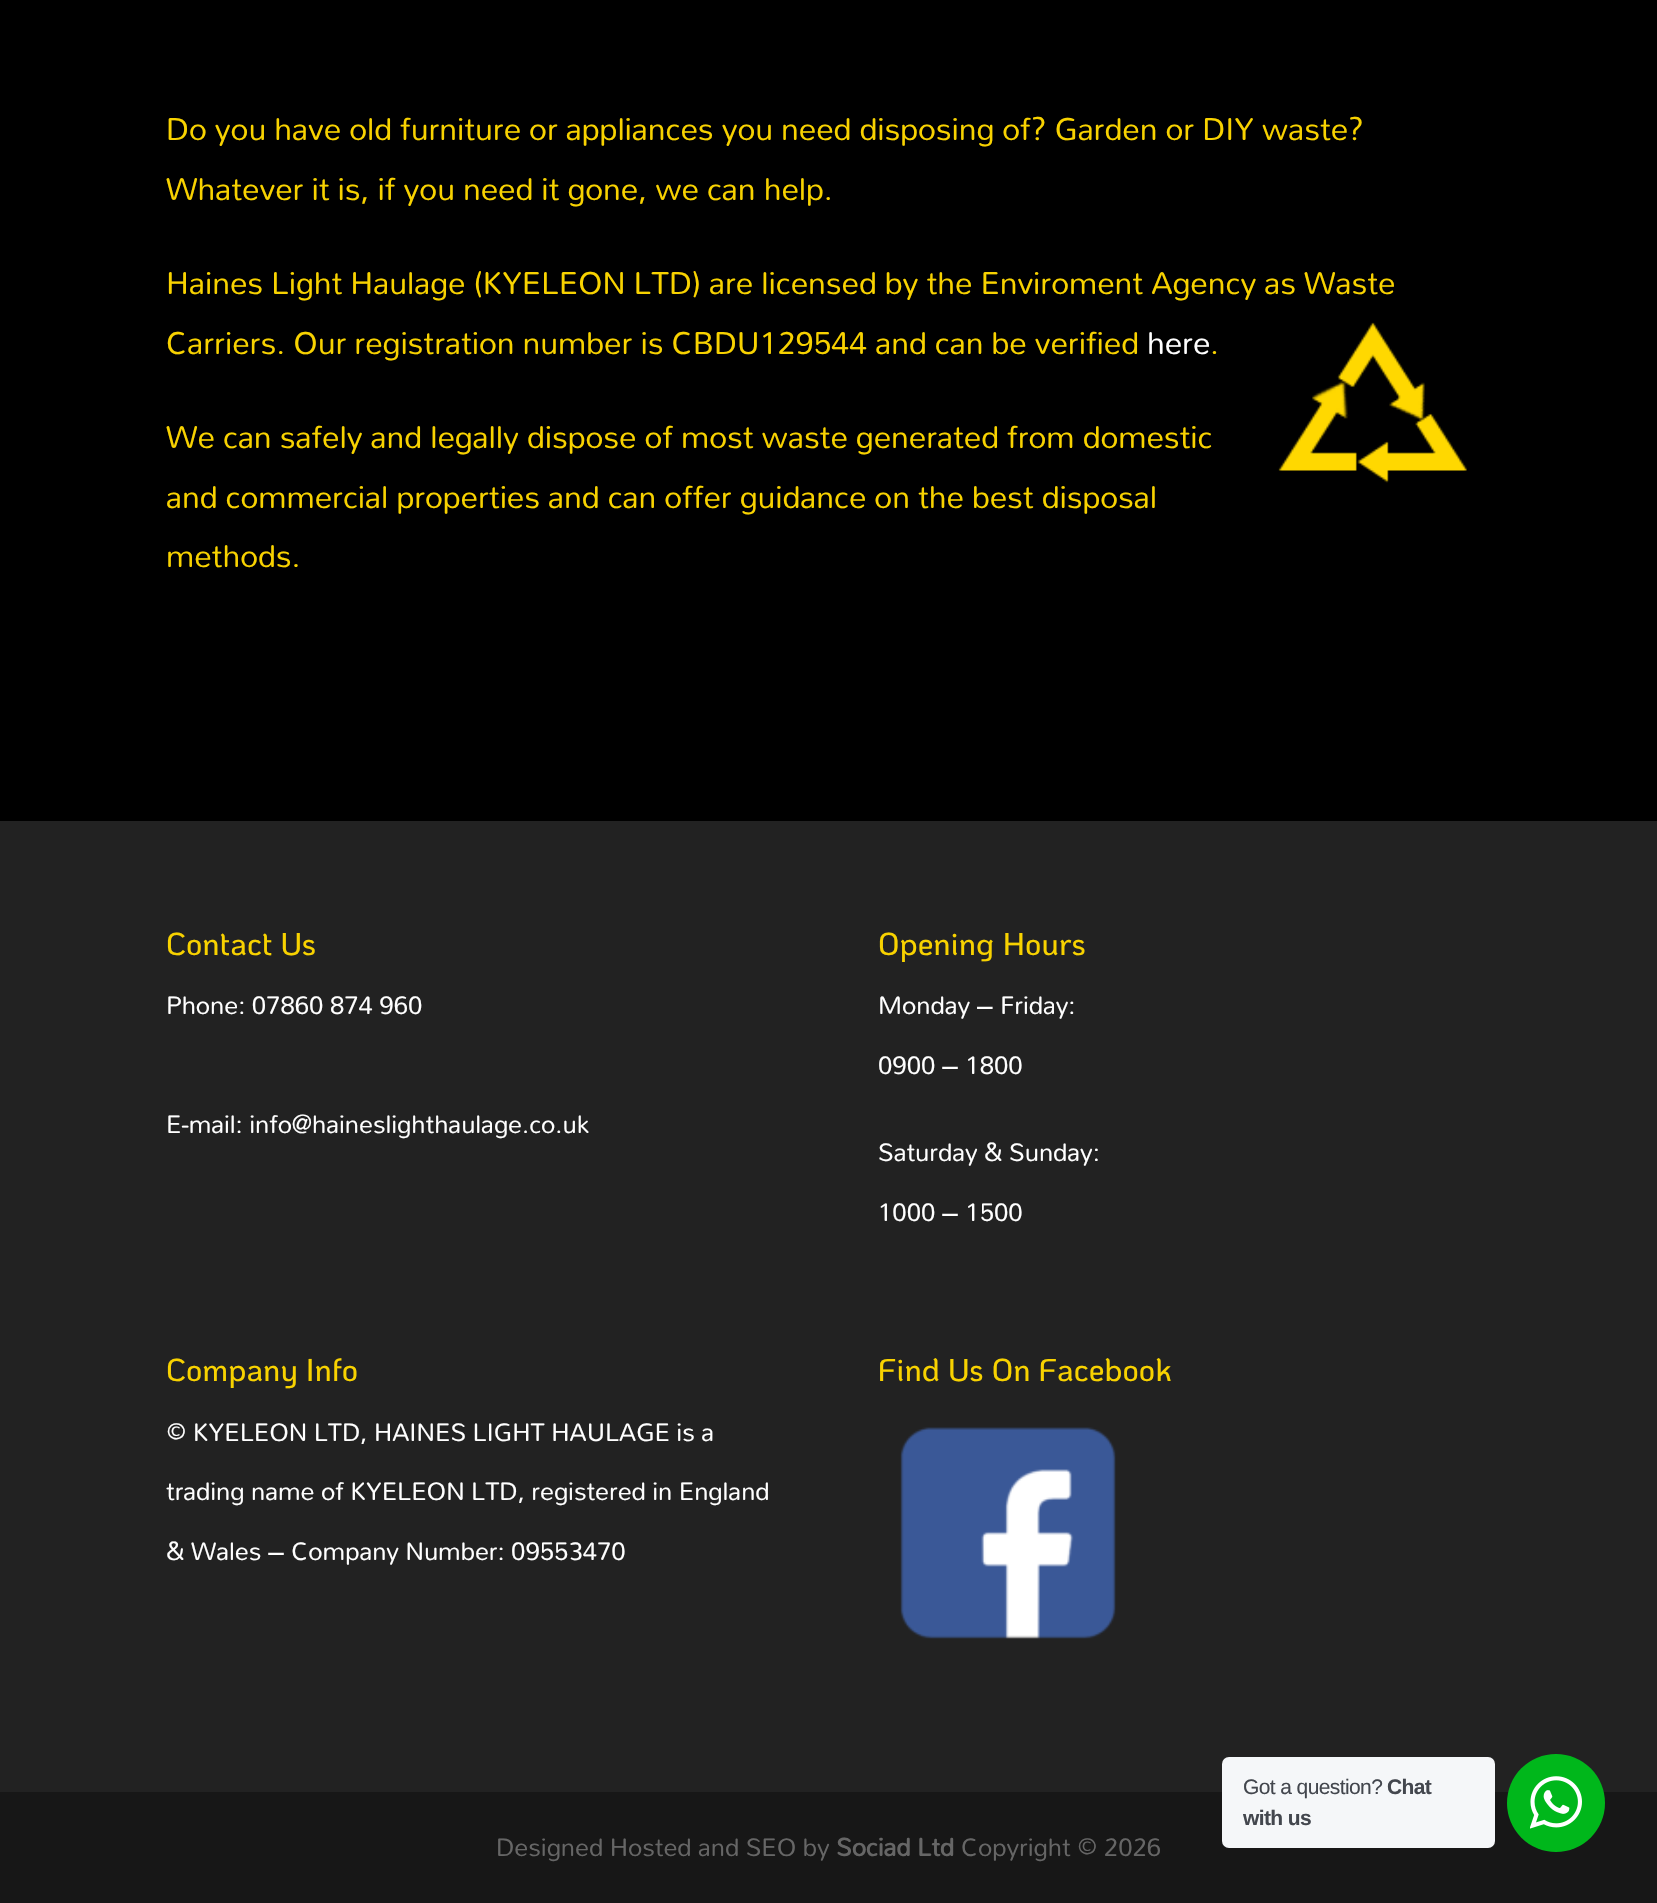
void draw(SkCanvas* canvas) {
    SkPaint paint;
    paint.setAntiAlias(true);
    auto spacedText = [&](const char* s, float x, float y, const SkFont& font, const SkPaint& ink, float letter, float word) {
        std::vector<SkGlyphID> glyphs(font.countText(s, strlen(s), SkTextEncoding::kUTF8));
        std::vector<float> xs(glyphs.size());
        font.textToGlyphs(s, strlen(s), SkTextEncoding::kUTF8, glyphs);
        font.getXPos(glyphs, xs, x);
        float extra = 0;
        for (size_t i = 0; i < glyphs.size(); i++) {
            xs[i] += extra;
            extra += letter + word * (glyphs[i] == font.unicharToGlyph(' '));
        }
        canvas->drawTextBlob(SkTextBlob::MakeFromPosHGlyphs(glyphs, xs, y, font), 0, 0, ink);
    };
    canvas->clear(0xFF222222);
    paint.setColor(0xFF000000);
    canvas->drawRect(SkRect::MakeXYWH(0, 0, 1657, 821), paint);
    SkFont font1(fontMgr->matchFamilyStyle("Mallanna", SkFontStyle::Normal()), 35);
    font1.setSubpixel(true);
    paint.setColor(0xFFF8D200);
    canvas->drawString("Do you have old furniture or appliances you need disposing of? Garden or DIY waste?", 166, 140, font1, paint);
    canvas->drawString("Whatever it is, if you need it gone, we can help.", 166, 200, font1, paint);
    canvas->drawString("Haines Light Haulage (KYELEON LTD) are licensed by the Enviroment Agency as Waste", 166, 294, font1, paint);
    canvas->drawString("Carriers. Our registration number is CBDU129544 and can be verified", 166, 354, font1, paint);
    paint.setColor(0xFFFFFFFF);
    canvas->drawString("here", 1147, 354, font1, paint);
    paint.setColor(0xFFF8D200);
    canvas->drawString(".", 1210, 354, font1, paint);
    canvas->drawImageRect(SkImages::DeferredFromEncodedData(SkData::MakeFromFileName("img1.png")), SkRect::MakeXYWH(1278, 322, 189, 161), SkSamplingOptions());
    canvas->drawString("We can safely and legally dispose of most waste generated from domestic", 166, 448, font1, paint);
    canvas->drawString("and commercial properties and can offer guidance on the best disposal", 166, 508, font1, paint);
    canvas->drawString("methods.", 166, 567, font1, paint);
    SkFont font2(fontMgr->matchFamilyStyle("KoHo", SkFontStyle(500, SkFontStyle::kNormal_Width, SkFontStyle::kUpright_Slant)), 31.5f);
    font2.setSubpixel(true);
    canvas->drawString("Contact Us", 166, 955, font2, paint);
    SkFont font3(fontMgr->matchFamilyStyle("Mallanna", SkFontStyle::Normal()), 28);
    font3.setSubpixel(true);
    paint.setColor(0xFFFFFFFF);
    canvas->drawString("Phone: 07860 874 960", 166, 1014, font3, paint);
    canvas->drawString("E-mail: info@haineslighthaulage.co.uk", 166, 1133, font3, paint);
    paint.setColor(0xFFF8D200);
    canvas->drawString("Opening Hours", 878, 955, font2, paint);
    paint.setColor(0xFFFFFFFF);
    canvas->drawString("Monday – Friday:", 878, 1014, font3, paint);
    canvas->drawString("0900 – 1800", 878, 1074, font3, paint);
    canvas->drawString("Saturday & Sunday:", 878, 1161, font3, paint);
    canvas->drawString("1000 – 1500", 878, 1221, font3, paint);
    paint.setColor(0xFFF8D200);
    canvas->drawString("Company Info", 166, 1381, font2, paint);
    paint.setColor(0xFFFFFFFF);
    canvas->drawString("© KYELEON LTD, HAINES LIGHT HAULAGE is a", 166, 1441, font3, paint);
    canvas->drawString("trading name of KYELEON LTD, registered in England", 166, 1500, font3, paint);
    canvas->drawString("& Wales – Company Number: 09553470", 166, 1560, font3, paint);
    paint.setColor(0xFFF8D200);
    canvas->drawString("Find Us On Facebook", 878, 1381, font2, paint);
    canvas->drawImageRect(SkImages::DeferredFromEncodedData(SkData::MakeFromFileName("img2.png")), SkRect::MakeXYWH(900, 1427, 216, 212), SkSamplingOptions());
    paint.setColor(0xFF171717);
    canvas->drawRect(SkRect::MakeXYWH(0, 1792, 1657, 111), paint);
    paint.setColor(0xFF666666);
    canvas->drawString("Designed Hosted and SEO by", 496, 1856, font3, paint);
    SkFont font4(fontMgr->matchFamilyStyle("Mallanna", SkFontStyle::Bold()), 28);
    font4.setSubpixel(true);
    canvas->drawString("Sociad Ltd", 836, 1856, font4, paint);
    canvas->drawString("Copyright © 2026", 961, 1856, font3, paint);
    paint.setColor(0xFFF5F7F9);
    canvas->drawRoundRect(SkRect::MakeXYWH(1222, 1757, 273, 91), 7, 7, paint);
    SkFont font5(fontMgr->matchFamilyStyle("Liberation Sans", SkFontStyle::Normal()), 21);
    font5.setSubpixel(true);
    paint.setColor(0xFF43474E);
    spacedText("Got a question?", 1243, 1794, font5, paint, -0.6f, 0);
    SkFont font6(fontMgr->matchFamilyStyle("Liberation Sans", SkFontStyle::Bold()), 21);
    font6.setSubpixel(true);
    spacedText("Chat", 1387, 1794, font6, paint, -0.6f, 0);
    spacedText("with us", 1243, 1825, font6, paint, -0.6f, 0);
    paint.setColor(0xFF00B71B);
    canvas->drawCircle(1556, 1803, 49, paint);
    canvas->drawImageRect(SkImages::DeferredFromEncodedData(SkData::MakeFromFileName("img3.png")), SkRect::MakeXYWH(1530, 1776, 52, 53), SkSamplingOptions());
}
